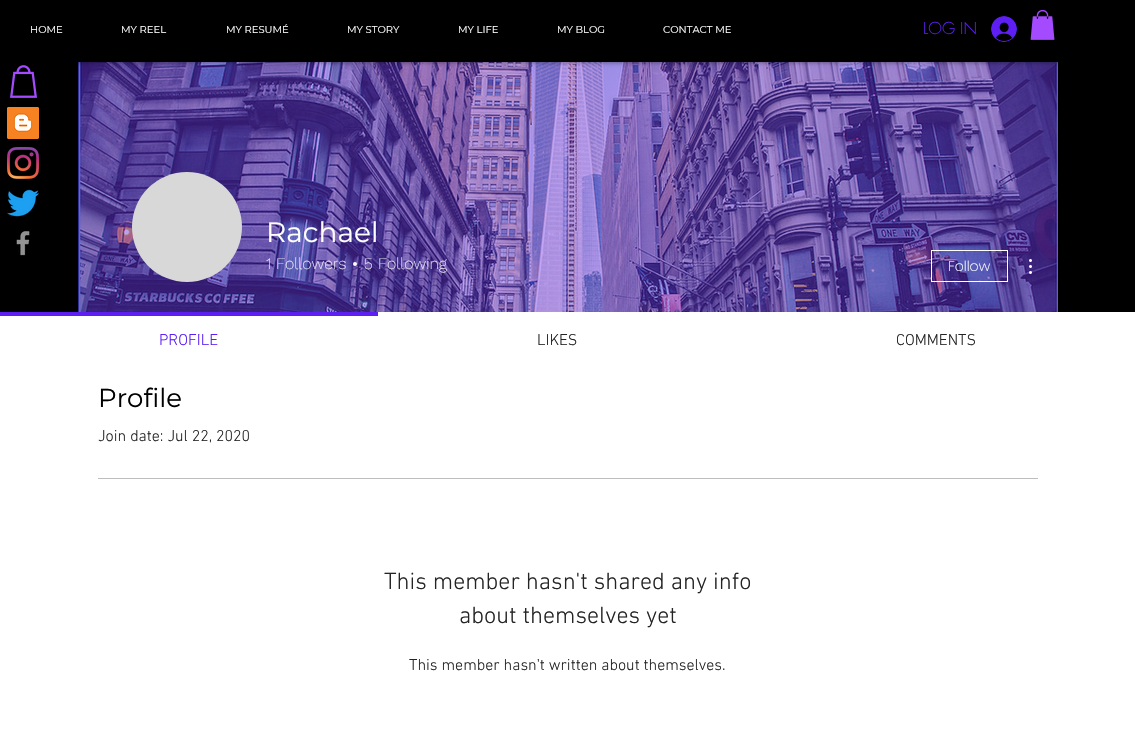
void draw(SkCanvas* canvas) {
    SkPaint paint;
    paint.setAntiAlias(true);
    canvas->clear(0xFFFFFFFF);
    paint.setColor(0xFF000000);
    canvas->drawRect(SkRect::MakeXYWH(0, 62, 1135, 250), paint);
    paint.setColor(0xFF5D1FF2);
    canvas->drawRect(SkRect::MakeXYWH(78, 62, 980, 250), paint);
    canvas->drawImageRect(SkImages::DeferredFromEncodedData(SkData::MakeFromFileName("img8.png")), SkRect::MakeXYWH(78, 62, 980, 250), SkSamplingOptions());
    paint.setColor(0x80000000);
    paint.setMaskFilter(SkMaskFilter::MakeBlur(kNormal_SkBlurStyle, 2.5f));
    canvas->drawRect(SkRect::MakeXYWH(0, 0, 1135, 62), paint);
    paint.setMaskFilter(nullptr);
    paint.setColor(0xFF000000);
    canvas->drawRect(SkRect::MakeXYWH(0, 0, 1135, 62), paint);
    SkFont font1(fontMgr->matchFamilyStyle("Montserrat", SkFontStyle::Normal()), 10);
    font1.setSubpixel(true);
    paint.setColor(0xFFFFFFFF);
    canvas->drawString("HOME", 30, 33, font1, paint);
    canvas->drawString("MY REEL", 121, 33, font1, paint);
    canvas->drawString("MY RESUMÉ", 226, 33, font1, paint);
    canvas->drawString("MY STORY", 347, 33, font1, paint);
    canvas->drawString("MY LIFE", 458, 33, font1, paint);
    canvas->drawString("MY BLOG", 557, 33, font1, paint);
    canvas->drawString("CONTACT ME", 663, 33, font1, paint);
    canvas->drawImageRect(SkImages::DeferredFromEncodedData(SkData::MakeFromFileName("img1.png")), SkRect::MakeXYWH(10, 65, 27, 33), SkSamplingOptions());
    canvas->drawImageRect(SkImages::DeferredFromEncodedData(SkData::MakeFromFileName("img2.png")), SkRect::MakeXYWH(7, 107, 32, 32), SkSamplingOptions());
    canvas->drawImageRect(SkImages::DeferredFromEncodedData(SkData::MakeFromFileName("img3.png")), SkRect::MakeXYWH(7, 147, 32, 32), SkSamplingOptions());
    canvas->drawImageRect(SkImages::DeferredFromEncodedData(SkData::MakeFromFileName("img4.png")), SkRect::MakeXYWH(7, 189, 32, 28), SkSamplingOptions());
    canvas->drawImageRect(SkImages::DeferredFromEncodedData(SkData::MakeFromFileName("img5.png")), SkRect::MakeXYWH(16, 231, 14, 25), SkSamplingOptions());
    SkFont font2(fontMgr->matchFamilyStyle("futura", SkFontStyle(300, SkFontStyle::kNormal_Width, SkFontStyle::kUpright_Slant)), 16);
    font2.setSubpixel(true);
    paint.setColor(0xFF5D1FF2);
    canvas->drawString("LOG IN", 923, 34, font2, paint);
    canvas->drawImageRect(SkImages::DeferredFromEncodedData(SkData::MakeFromFileName("img6.png")), SkRect::MakeXYWH(991, 16, 26, 26), SkSamplingOptions());
    canvas->drawImageRect(SkImages::DeferredFromEncodedData(SkData::MakeFromFileName("img7.png")), SkRect::MakeXYWH(1030, 10, 25, 30), SkSamplingOptions());
    paint.setColor(0xFFD8D8D8);
    canvas->drawCircle(187, 227, 55, paint);
    SkFont font3(fontMgr->matchFamilyStyle("Montserrat", SkFontStyle::Normal()), 28);
    font3.setSubpixel(true);
    paint.setColor(0xFFFFFFFF);
    canvas->drawString("Rachael", 266, 242, font3, paint);
    SkFont font4(fontMgr->matchFamilyStyle("Work Sans", SkFontStyle(200, SkFontStyle::kNormal_Width, SkFontStyle::kUpright_Slant)), 16);
    font4.setSubpixel(true);
    canvas->drawString("1", 266, 269, font4, paint);
    canvas->drawString("Followers", 276, 269, font4, paint);
    canvas->drawCircle(355, 264, 2, paint);
    canvas->drawString("5", 364, 269, font4, paint);
    canvas->drawString("Following", 378, 269, font4, paint);
    paint.setStyle(SkPaint::kStroke_Style);
    paint.setStrokeWidth(1);
    canvas->drawRect(SkRect::MakeXYWH(931.5f, 250.5f, 76, 31), paint);
    SkFont font5(fontMgr->matchFamilyStyle("Poppins", SkFontStyle(200, SkFontStyle::kNormal_Width, SkFontStyle::kUpright_Slant)), 14);
    font5.setSubpixel(true);
    paint.setStyle(SkPaint::kFill_Style);
    canvas->drawString("Follow", 948, 271, font5, paint);
    canvas->drawImageRect(SkImages::DeferredFromEncodedData(SkData::MakeFromFileName("img9.png")), SkRect::MakeXYWH(1029, 259, 3, 15), SkSamplingOptions());
    paint.setColor(0xFF5D1FF2);
    canvas->drawRect(SkRect::MakeXYWH(0, 312, 378, 4), paint);
    SkFont font6(fontMgr->matchFamilyStyle("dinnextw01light", SkFontStyle(300, SkFontStyle::kNormal_Width, SkFontStyle::kUpright_Slant)), 16);
    font6.setSubpixel(true);
    canvas->drawString("PROFILE", 159, 345, font6, paint);
    paint.setColor(0xFF242424);
    canvas->drawString("LIKES", 537, 345, font6, paint);
    canvas->drawString("COMMENTS", 896, 345, font6, paint);
    SkFont font7(fontMgr->matchFamilyStyle("Montserrat", SkFontStyle::Normal()), 26);
    font7.setSubpixel(true);
    paint.setColor(0xFF000000);
    canvas->drawString("Profile", 98, 407, font7, paint);
    paint.setColor(0xFF242424);
    canvas->drawString("Join date: Jul 22, 2020", 98, 441, font6, paint);
    paint.setColor(0xFFBDBDBD);
    canvas->drawRect(SkRect::MakeXYWH(98, 478, 940, 1), paint);
    SkFont font8(fontMgr->matchFamilyStyle("dinnextw01light", SkFontStyle(300, SkFontStyle::kNormal_Width, SkFontStyle::kUpright_Slant)), 24);
    font8.setSubpixel(true);
    paint.setColor(0xFF242424);
    canvas->drawString("This member hasn't shared any info", 384, 589, font8, paint);
    canvas->drawString("about themselves yet", 459, 623, font8, paint);
    canvas->drawString("This member hasn't written about themselves.", 409, 670, font6, paint);
}
